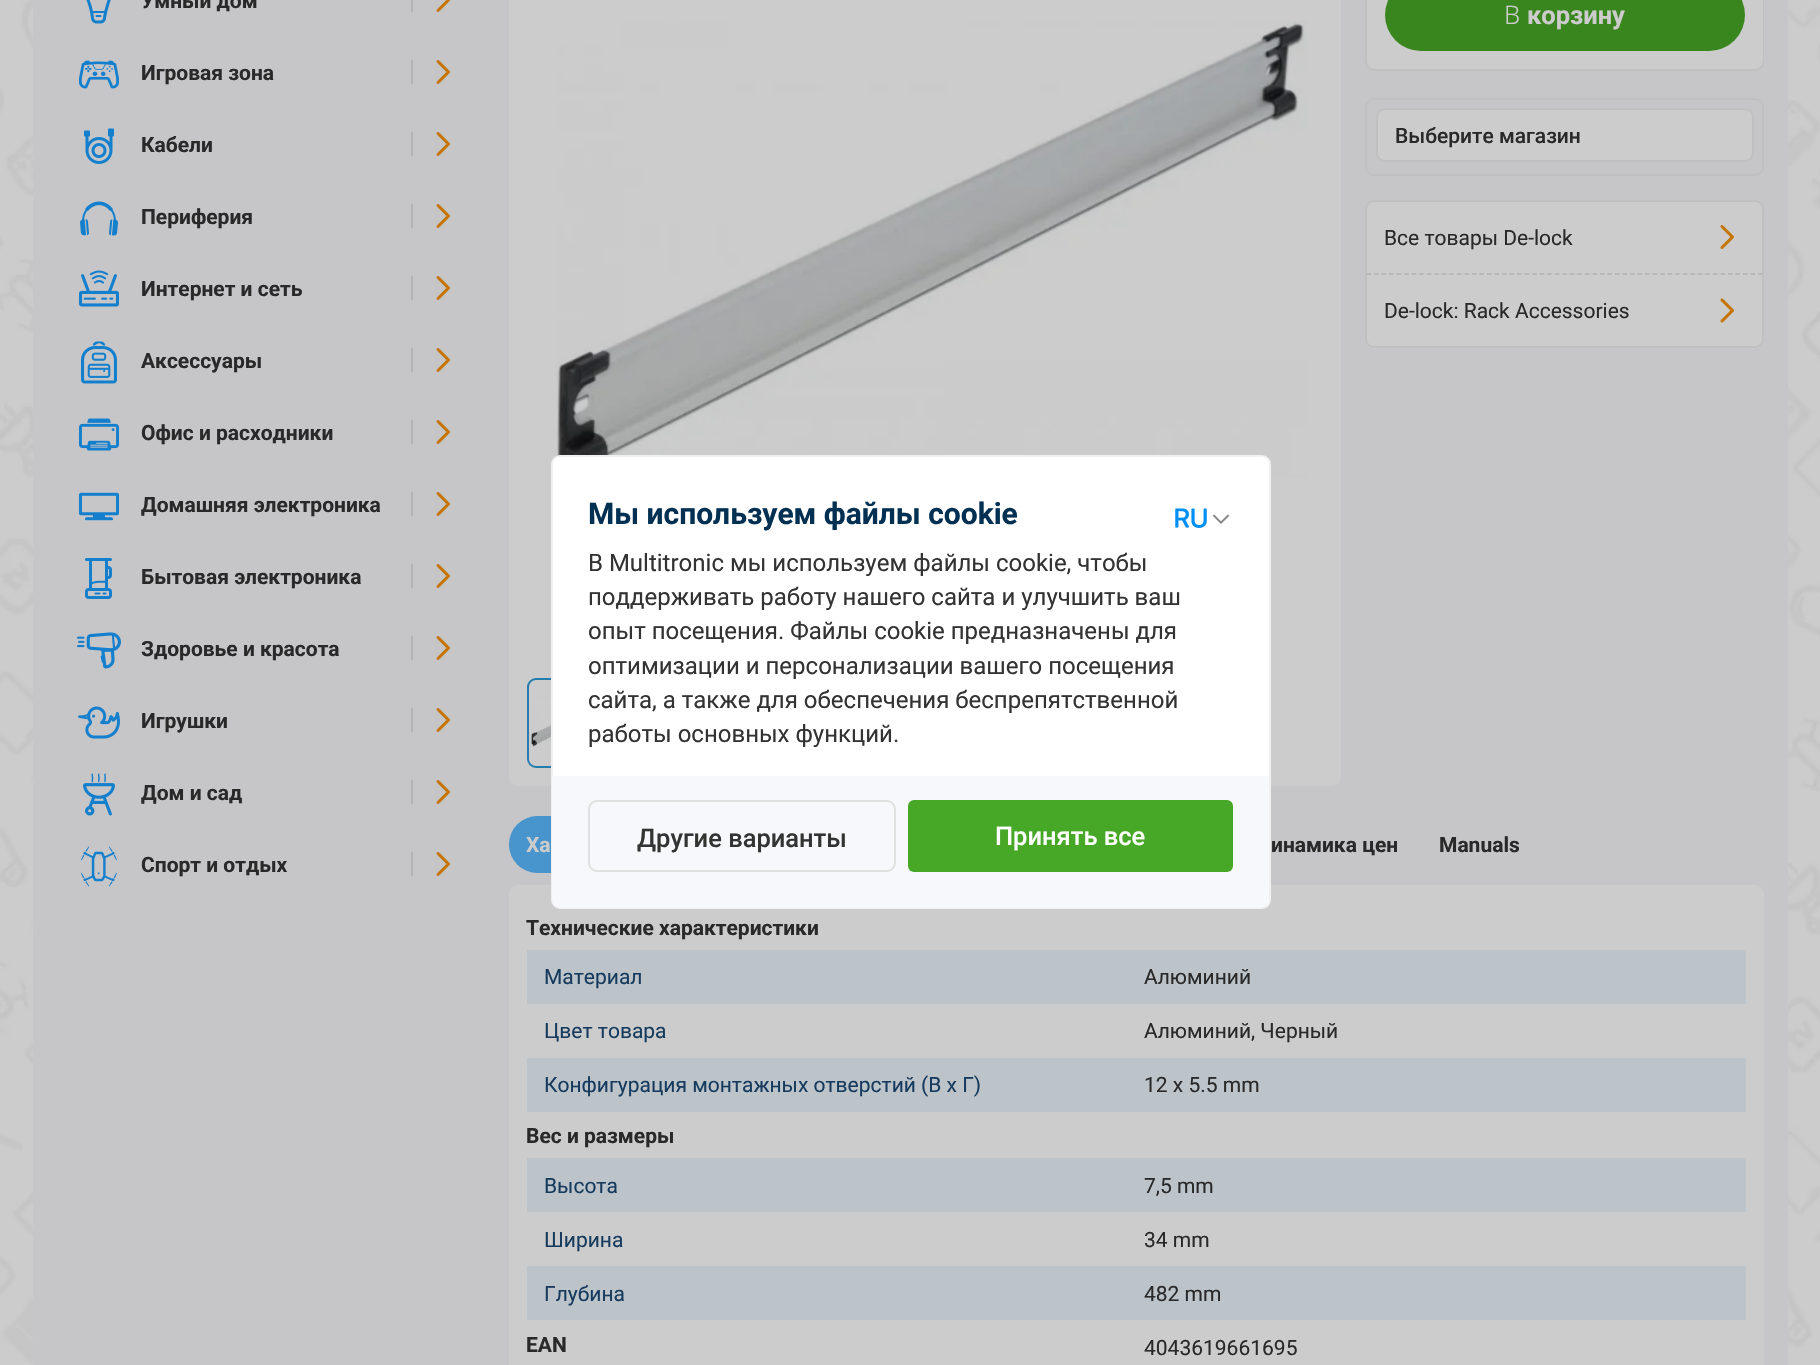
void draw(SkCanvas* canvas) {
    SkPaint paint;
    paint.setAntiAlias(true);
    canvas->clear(0xFFFFFFFF);
    canvas->drawImageRect(SkImages::DeferredFromEncodedData(SkData::MakeFromFileName("img1.png")), SkRect::MakeXYWH(0, 0, 1820, 1365), SkSamplingOptions());
    paint.setColor(0xFFC6C6C9);
    canvas->drawRect(SkRect::MakeXYWH(33, 0, 1755, 1365), paint);
    canvas->drawImageRect(SkImages::DeferredFromEncodedData(SkData::MakeFromFileName("img2.png")), SkRect::MakeXYWH(86, 0, 25, 24), SkSamplingOptions());
    SkFont font1(fontMgr->matchFamilyStyle("Roboto", SkFontStyle::Bold()), 21);
    font1.setSubpixel(true);
    paint.setColor(0xFF292929);
    canvas->drawString("Умный дом", 141, 8, font1, paint);
    paint.setColor(0xFFB3B3B3);
    canvas->drawRect(SkRect::MakeXYWH(411, 0, 2, 12), paint);
    canvas->drawImageRect(SkImages::DeferredFromEncodedData(SkData::MakeFromFileName("img3.png")), SkRect::MakeXYWH(436, 0, 14, 12), SkSamplingOptions());
    canvas->drawImageRect(SkImages::DeferredFromEncodedData(SkData::MakeFromFileName("img4.png")), SkRect::MakeXYWH(79, 60, 40, 29), SkSamplingOptions());
    paint.setColor(0xFF292929);
    canvas->drawString("Игровая зона", 141, 80, font1, paint);
    paint.setColor(0xFFB3B3B3);
    canvas->drawRect(SkRect::MakeXYWH(411, 60, 2, 24), paint);
    canvas->drawImageRect(SkImages::DeferredFromEncodedData(SkData::MakeFromFileName("img5.png")), SkRect::MakeXYWH(436, 60, 14, 24), SkSamplingOptions());
    canvas->drawImageRect(SkImages::DeferredFromEncodedData(SkData::MakeFromFileName("img6.png")), SkRect::MakeXYWH(84, 128, 30, 36), SkSamplingOptions());
    paint.setColor(0xFF292929);
    canvas->drawString("Кабели", 141, 152, font1, paint);
    paint.setColor(0xFFB3B3B3);
    canvas->drawRect(SkRect::MakeXYWH(411, 132, 2, 24), paint);
    canvas->drawImageRect(SkImages::DeferredFromEncodedData(SkData::MakeFromFileName("img5.png")), SkRect::MakeXYWH(436, 132, 14, 24), SkSamplingOptions());
    canvas->drawImageRect(SkImages::DeferredFromEncodedData(SkData::MakeFromFileName("img7.png")), SkRect::MakeXYWH(80, 201, 38, 35), SkSamplingOptions());
    paint.setColor(0xFF292929);
    canvas->drawString("Периферия", 141, 224, font1, paint);
    paint.setColor(0xFFB3B3B3);
    canvas->drawRect(SkRect::MakeXYWH(411, 204, 2, 24), paint);
    canvas->drawImageRect(SkImages::DeferredFromEncodedData(SkData::MakeFromFileName("img5.png")), SkRect::MakeXYWH(436, 204, 14, 24), SkSamplingOptions());
    canvas->drawImageRect(SkImages::DeferredFromEncodedData(SkData::MakeFromFileName("img8.png")), SkRect::MakeXYWH(79, 270, 40, 37), SkSamplingOptions());
    paint.setColor(0xFF292929);
    canvas->drawString("Интернет и сеть", 141, 296, font1, paint);
    paint.setColor(0xFFB3B3B3);
    canvas->drawRect(SkRect::MakeXYWH(411, 276, 2, 24), paint);
    canvas->drawImageRect(SkImages::DeferredFromEncodedData(SkData::MakeFromFileName("img5.png")), SkRect::MakeXYWH(436, 276, 14, 24), SkSamplingOptions());
    canvas->drawImageRect(SkImages::DeferredFromEncodedData(SkData::MakeFromFileName("img9.png")), SkRect::MakeXYWH(81, 341, 36, 43), SkSamplingOptions());
    paint.setColor(0xFF292929);
    canvas->drawString("Аксессуары", 141, 368, font1, paint);
    paint.setColor(0xFFB3B3B3);
    canvas->drawRect(SkRect::MakeXYWH(411, 348, 2, 24), paint);
    canvas->drawImageRect(SkImages::DeferredFromEncodedData(SkData::MakeFromFileName("img5.png")), SkRect::MakeXYWH(436, 348, 14, 24), SkSamplingOptions());
    canvas->drawImageRect(SkImages::DeferredFromEncodedData(SkData::MakeFromFileName("img10.png")), SkRect::MakeXYWH(79, 418, 40, 33), SkSamplingOptions());
    paint.setColor(0xFF292929);
    canvas->drawString("Офис и расходники", 141, 440, font1, paint);
    paint.setColor(0xFFB3B3B3);
    canvas->drawRect(SkRect::MakeXYWH(411, 420, 2, 24), paint);
    canvas->drawImageRect(SkImages::DeferredFromEncodedData(SkData::MakeFromFileName("img5.png")), SkRect::MakeXYWH(436, 420, 14, 24), SkSamplingOptions());
    canvas->drawImageRect(SkImages::DeferredFromEncodedData(SkData::MakeFromFileName("img11.png")), SkRect::MakeXYWH(79, 492, 40, 29), SkSamplingOptions());
    paint.setColor(0xFF292929);
    canvas->drawString("Домашняя электроника", 141, 512, font1, paint);
    paint.setColor(0xFFB3B3B3);
    canvas->drawRect(SkRect::MakeXYWH(411, 492, 2, 24), paint);
    canvas->drawImageRect(SkImages::DeferredFromEncodedData(SkData::MakeFromFileName("img5.png")), SkRect::MakeXYWH(436, 492, 14, 24), SkSamplingOptions());
    canvas->drawImageRect(SkImages::DeferredFromEncodedData(SkData::MakeFromFileName("img12.png")), SkRect::MakeXYWH(85, 558, 27, 41), SkSamplingOptions());
    paint.setColor(0xFF292929);
    canvas->drawString("Бытовая электроника", 141, 584, font1, paint);
    paint.setColor(0xFFB3B3B3);
    canvas->drawRect(SkRect::MakeXYWH(411, 564, 2, 24), paint);
    canvas->drawImageRect(SkImages::DeferredFromEncodedData(SkData::MakeFromFileName("img5.png")), SkRect::MakeXYWH(436, 564, 14, 24), SkSamplingOptions());
    canvas->drawImageRect(SkImages::DeferredFromEncodedData(SkData::MakeFromFileName("img13.png")), SkRect::MakeXYWH(77, 632, 44, 37), SkSamplingOptions());
    paint.setColor(0xFF292929);
    canvas->drawString("Здоровье и красота", 141, 656, font1, paint);
    paint.setColor(0xFFB3B3B3);
    canvas->drawRect(SkRect::MakeXYWH(411, 636, 2, 24), paint);
    canvas->drawImageRect(SkImages::DeferredFromEncodedData(SkData::MakeFromFileName("img5.png")), SkRect::MakeXYWH(436, 636, 14, 24), SkSamplingOptions());
    canvas->drawImageRect(SkImages::DeferredFromEncodedData(SkData::MakeFromFileName("img14.png")), SkRect::MakeXYWH(78, 706, 42, 33), SkSamplingOptions());
    paint.setColor(0xFF292929);
    canvas->drawString("Игрушки", 141, 728, font1, paint);
    paint.setColor(0xFFB3B3B3);
    canvas->drawRect(SkRect::MakeXYWH(411, 708, 2, 24), paint);
    canvas->drawImageRect(SkImages::DeferredFromEncodedData(SkData::MakeFromFileName("img5.png")), SkRect::MakeXYWH(436, 708, 14, 24), SkSamplingOptions());
    canvas->drawImageRect(SkImages::DeferredFromEncodedData(SkData::MakeFromFileName("img15.png")), SkRect::MakeXYWH(83, 773, 32, 43), SkSamplingOptions());
    paint.setColor(0xFF292929);
    canvas->drawString("Дом и сад", 141, 800, font1, paint);
    paint.setColor(0xFFB3B3B3);
    canvas->drawRect(SkRect::MakeXYWH(411, 780, 2, 24), paint);
    canvas->drawImageRect(SkImages::DeferredFromEncodedData(SkData::MakeFromFileName("img5.png")), SkRect::MakeXYWH(436, 780, 14, 24), SkSamplingOptions());
    canvas->drawImageRect(SkImages::DeferredFromEncodedData(SkData::MakeFromFileName("img16.png")), SkRect::MakeXYWH(81, 846, 36, 41), SkSamplingOptions());
    paint.setColor(0xFF292929);
    canvas->drawString("Спорт и отдых", 141, 872, font1, paint);
    paint.setColor(0xFFB3B3B3);
    canvas->drawRect(SkRect::MakeXYWH(411, 852, 2, 24), paint);
    canvas->drawImageRect(SkImages::DeferredFromEncodedData(SkData::MakeFromFileName("img5.png")), SkRect::MakeXYWH(436, 852, 14, 24), SkSamplingOptions());
    paint.setColor(0xFFCCCCCC);
    canvas->drawRoundRect(SkRect::MakeXYWH(509, -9, 832, 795), 9, 9, paint);
    canvas->drawImageRect(SkImages::DeferredFromEncodedData(SkData::MakeFromFileName("img17.png")), SkRect::MakeXYWH(556, 21, 751, 457), SkSamplingOptions());
    canvas->drawImageRect(SkImages::DeferredFromEncodedData(SkData::MakeFromFileName("img18.png")), SkRect::MakeXYWH(531, 696, 20, 51), SkSamplingOptions());
    paint.setStyle(SkPaint::kStroke_Style);
    paint.setStrokeWidth(2);
    paint.setColor(0xFF247DAF);
    canvas->drawRoundRect(SkRect::MakeXYWH(528, 679, 88, 88), 8, 8, paint);
    paint.setColor(0xFFC0C0C0);
    canvas->drawRoundRect(SkRect::MakeXYWH(1366, -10, 397, 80), 8, 8, paint);
    paint.setStyle(SkPaint::kFill_Style);
    paint.setColor(0xFFCCCCCC);
    canvas->drawPath(SkPathBuilder().moveTo(1367, -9).lineTo(1763, -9).lineTo(1763, 60).cubicTo(1763, 65, 1759, 69, 1754, 69).lineTo(1376, 69).cubicTo(1371, 69, 1367, 65, 1367, 60).close().detach(), paint);
    paint.setColor(0xFF39861F);
    canvas->drawRoundRect(SkRect::MakeXYWH(1385, -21, 360, 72), 36, 36, paint);
    SkFont font2(fontMgr->matchFamilyStyle("Noto Sans", SkFontStyle(300, SkFontStyle::kNormal_Width, SkFontStyle::kUpright_Slant)), 25.5f);
    font2.setSubpixel(true);
    paint.setColor(0xFFCCCCCC);
    canvas->drawString("В", 1504, 24, font2, paint);
    SkFont font3(fontMgr->matchFamilyStyle("Roboto", SkFontStyle::Bold()), 25.5f);
    font3.setSubpixel(true);
    canvas->drawString("корзину", 1527, 24, font3, paint);
    paint.setStyle(SkPaint::kStroke_Style);
    paint.setColor(0xFFC0C0C0);
    canvas->drawRoundRect(SkRect::MakeXYWH(1366, 99, 397, 76), 8, 8, paint);
    paint.setStyle(SkPaint::kFill_Style);
    paint.setColor(0xFFCCCCCC);
    canvas->drawRoundRect(SkRect::MakeXYWH(1377, 109, 376, 52), 8, 8, paint);
    paint.setStyle(SkPaint::kStroke_Style);
    paint.setColor(0xFFC0C0C0);
    canvas->drawRoundRect(SkRect::MakeXYWH(1377, 109, 376, 52), 8, 8, paint);
    SkFont font4(fontMgr->matchFamilyStyle("Roboto", SkFontStyle(500, SkFontStyle::kNormal_Width, SkFontStyle::kUpright_Slant)), 21);
    font4.setSubpixel(true);
    paint.setStyle(SkPaint::kFill_Style);
    paint.setColor(0xFF292929);
    canvas->drawString("Выберите магазин", 1395, 143, font4, paint);
    paint.setColor(0xFFCCCCCC);
    canvas->drawRoundRect(SkRect::MakeXYWH(1366, 201, 397, 146), 8, 8, paint);
    paint.setStyle(SkPaint::kStroke_Style);
    paint.setColor(0xFFC0C0C0);
    canvas->drawRoundRect(SkRect::MakeXYWH(1366, 201, 397, 146), 8, 8, paint);
    SkFont font5(fontMgr->matchFamilyStyle("Roboto", SkFontStyle::Normal()), 21);
    font5.setSubpixel(true);
    paint.setStyle(SkPaint::kFill_Style);
    paint.setColor(0xFF292929);
    canvas->drawString("Все товары De-lock", 1384, 245, font5, paint);
    canvas->drawImageRect(SkImages::DeferredFromEncodedData(SkData::MakeFromFileName("img19.png")), SkRect::MakeXYWH(1720, 225, 14, 24), SkSamplingOptions());
    paint.setStyle(SkPaint::kStroke_Style);
    paint.setStrokeWidth(1.5f);
    paint.setColor(0xFFB2B2B2);
    paint.setPathEffect(SkDashPathEffect::Make({{4.5f, 3.03f}}, 0));
    canvas->drawPath(SkPathBuilder().moveTo(1366.5f, 274).lineTo(1762.5f, 274).detach(), paint);
    paint.setPathEffect(nullptr);
    paint.setStyle(SkPaint::kFill_Style);
    paint.setColor(0xFF292929);
    canvas->drawString("De-lock: Rack Accessories", 1384, 318, font5, paint);
    canvas->drawImageRect(SkImages::DeferredFromEncodedData(SkData::MakeFromFileName("img20.png")), SkRect::MakeXYWH(1720, 298, 14, 25), SkSamplingOptions());
    paint.setColor(0xFF4795CC);
    canvas->drawRoundRect(SkRect::MakeXYWH(509, 816, 198, 57), 28.5f, 28.5f, paint);
    paint.setColor(0xFFCCCCCC);
    canvas->drawString("Ха", 526, 852, font1, paint);
    paint.setColor(0xFF292929);
    canvas->drawString("инамика цен", 1271, 852, font1, paint);
    canvas->drawString("Manuals", 1439, 852, font1, paint);
    paint.setColor(0xFFCCCCCC);
    canvas->drawRoundRect(SkRect::MakeXYWH(509, 885, 1255, 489), 9, 9, paint);
    paint.setColor(0xFF292929);
    canvas->drawString("Технические характеристики", 526, 935, font1, paint);
    paint.setColor(0xFFBCC3C9);
    canvas->drawRect(SkRect::MakeXYWH(527, 950, 1219, 54), paint);
    paint.setColor(0xFF163B5E);
    canvas->drawString("Материал", 544, 984, font5, paint);
    paint.setColor(0xFF292929);
    canvas->drawString("Алюминий", 1144, 984, font5, paint);
    paint.setColor(0xFF163B5E);
    canvas->drawString("Цвет товара", 544, 1038, font5, paint);
    paint.setColor(0xFF292929);
    canvas->drawString("Алюминий, Черный", 1144, 1038, font5, paint);
    paint.setColor(0xFFBCC3C9);
    canvas->drawRect(SkRect::MakeXYWH(527, 1058, 1219, 54), paint);
    paint.setColor(0xFF163B5E);
    canvas->drawString("Конфигурация монтажных отверстий (В х Г)", 544, 1092, font5, paint);
    paint.setColor(0xFF292929);
    canvas->drawString("12 x 5.5 mm", 1144, 1092, font5, paint);
    canvas->drawString("Вес и размеры", 526, 1143, font1, paint);
    paint.setColor(0xFFBCC3C9);
    canvas->drawRect(SkRect::MakeXYWH(527, 1158, 1219, 54), paint);
    paint.setColor(0xFF163B5E);
    canvas->drawString("Высота", 544, 1193, font5, paint);
    paint.setColor(0xFF292929);
    canvas->drawString("7,5 mm", 1144, 1193, font5, paint);
    paint.setColor(0xFF163B5E);
    canvas->drawString("Ширина", 544, 1247, font5, paint);
    paint.setColor(0xFF292929);
    canvas->drawString("34 mm", 1144, 1247, font5, paint);
    paint.setColor(0xFFBCC3C9);
    canvas->drawRect(SkRect::MakeXYWH(527, 1266, 1219, 54), paint);
    paint.setColor(0xFF163B5E);
    canvas->drawString("Глубина", 544, 1301, font5, paint);
    paint.setColor(0xFF292929);
    canvas->drawString("482 mm", 1144, 1301, font5, paint);
    canvas->drawString("EAN", 526, 1352, font1, paint);
    canvas->drawString("4043619661695", 1144, 1355, font5, paint);
    paint.setColor(0xFFFFFFFF);
    canvas->drawRoundRect(SkRect::MakeXYWH(552, 456, 718, 452), 8, 8, paint);
    paint.setStyle(SkPaint::kStroke_Style);
    paint.setStrokeWidth(2);
    paint.setColor(0xFFF0F0F0);
    canvas->drawRoundRect(SkRect::MakeXYWH(552, 456, 718, 452), 8, 8, paint);
    SkFont font6(fontMgr->matchFamilyStyle("Roboto", SkFontStyle::Bold()), 30);
    font6.setSubpixel(true);
    paint.setStyle(SkPaint::kFill_Style);
    paint.setColor(0xFF013052);
    canvas->drawString("Мы используем файлы cookie", 588, 524, font6, paint);
    canvas->drawImageRect(SkImages::DeferredFromEncodedData(SkData::MakeFromFileName("img21.png")), SkRect::MakeXYWH(1175, 508, 32, 20), SkSamplingOptions());
    canvas->drawImageRect(SkImages::DeferredFromEncodedData(SkData::MakeFromFileName("img22.png")), SkRect::MakeXYWH(1213, 514, 16, 10), SkSamplingOptions());
    SkFont font7(fontMgr->matchFamilyStyle("Roboto", SkFontStyle::Normal()), 24);
    font7.setSubpixel(true);
    paint.setColor(0xFF333333);
    canvas->drawString("В Multitronic мы используем файлы cookie, чтобы", 588, 571, font7, paint);
    canvas->drawString("поддерживать работу нашего сайта и улучшить ваш", 588, 605, font7, paint);
    canvas->drawString("опыт посещения. Файлы cookie предназначены для", 588, 639, font7, paint);
    canvas->drawString("оптимизации и персонализации вашего посещения", 588, 674, font7, paint);
    canvas->drawString("сайта, а также для обеспечения беспрепятственной", 588, 708, font7, paint);
    canvas->drawString("работы основных функций.", 588, 742, font7, paint);
    paint.setColor(0xFFF7F8FB);
    canvas->drawPath(SkPathBuilder().moveTo(552, 776).lineTo(1269, 776).lineTo(1269, 899).cubicTo(1269, 904, 1265, 908, 1260, 908).lineTo(561, 908).cubicTo(556, 908, 552, 904, 552, 899).close().detach(), paint);
    paint.setStyle(SkPaint::kStroke_Style);
    paint.setColor(0xFFE0E0E0);
    canvas->drawRoundRect(SkRect::MakeXYWH(589, 801, 306, 70), 8, 8, paint);
    SkFont font8(fontMgr->matchFamilyStyle("Roboto", SkFontStyle(500, SkFontStyle::kNormal_Width, SkFontStyle::kUpright_Slant)), 25.5f);
    font8.setSubpixel(true);
    paint.setStyle(SkPaint::kFill_Style);
    paint.setColor(0xFF333333);
    canvas->drawString("Другие варианты", 637, 847, font8, paint);
    paint.setColor(0xFF47A827);
    canvas->drawRoundRect(SkRect::MakeXYWH(908, 800, 325, 72), 6, 6, paint);
    paint.setColor(0xFFFFFFFF);
    canvas->drawString("Принять все", 995, 845, font8, paint);
}
